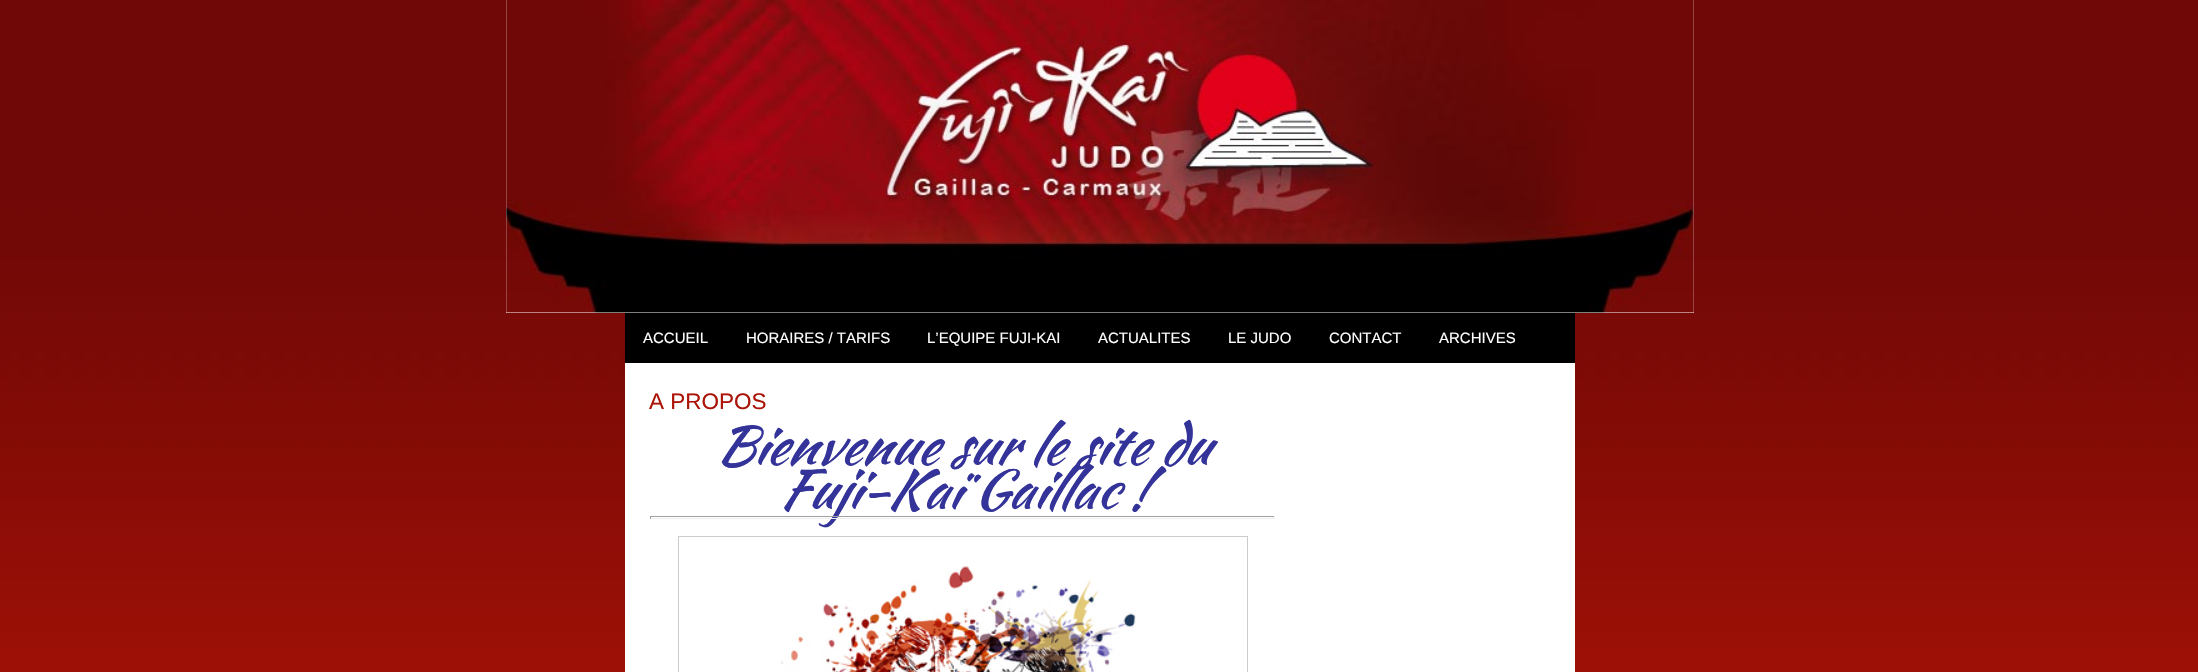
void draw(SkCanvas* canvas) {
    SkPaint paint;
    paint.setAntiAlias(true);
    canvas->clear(0xFFFFFFFF);
    canvas->drawImageRect(SkImages::DeferredFromEncodedData(SkData::MakeFromFileName("img1.png")), SkRect::MakeXYWH(0, 0, 2198, 672), SkSamplingOptions());
    paint.setColor(0xFFFFFFFF);
    canvas->drawRect(SkRect::MakeXYWH(506, 0, 1188, 313), paint);
    canvas->drawImageRect(SkImages::DeferredFromEncodedData(SkData::MakeFromFileName("img2.png")), SkRect::MakeXYWH(506, 0, 1188, 313), SkSamplingOptions());
    paint.setColor(0xFF000000);
    canvas->drawRect(SkRect::MakeXYWH(625, 313, 950, 50), paint);
    SkFont font1(fontMgr->matchFamilyStyle("Liberation Sans", SkFontStyle::Normal()), 15);
    font1.setSubpixel(true);
    paint.setColor(0xFFFFFFFF);
    canvas->drawString("ACCUEIL", 643, 343, font1, paint);
    canvas->drawString("HORAIRES / TARIFS", 746, 343, font1, paint);
    canvas->drawString("L’EQUIPE FUJI-KAI", 927, 343, font1, paint);
    canvas->drawString("ACTUALITES", 1098, 343, font1, paint);
    canvas->drawString("LE JUDO", 1228, 343, font1, paint);
    canvas->drawString("CONTACT", 1329, 343, font1, paint);
    canvas->drawString("ARCHIVES", 1439, 343, font1, paint);
    canvas->drawRect(SkRect::MakeXYWH(625, 363, 950, 309), paint);
    SkFont font2(fontMgr->matchFamilyStyle("Liberation Sans", SkFontStyle::Normal()), 22.5f);
    font2.setSubpixel(true);
    paint.setColor(0xFFAB1306);
    canvas->drawString("A PROPOS", 649, 409, font2, paint);
    SkFont font3(fontMgr->matchFamilyStyle("Kaushan Script", SkFontStyle::Italic()), 53.25f);
    font3.setSubpixel(true);
    paint.setColor(0xFF333399);
    canvas->drawString("Bienvenue sur le site du", 714, 464, font3, paint);
    canvas->drawString("Fuji-Kaï Gaillac !", 778, 508, font3, paint);
    paint.setColor(0xFF9F9F9F);
    canvas->drawRect(SkRect::MakeXYWH(650, 516, 625, 1), paint);
    paint.setColor(0xFFEEEEEE);
    canvas->drawRect(SkRect::MakeXYWH(1274, 516, 1, 3), paint);
    canvas->drawRect(SkRect::MakeXYWH(650, 518, 625, 1), paint);
    paint.setColor(0xFF9F9F9F);
    canvas->drawRect(SkRect::MakeXYWH(650, 516, 1, 3), paint);
    paint.setStyle(SkPaint::kStroke_Style);
    paint.setStrokeWidth(1);
    paint.setColor(0xFFCCCCCC);
    canvas->drawRect(SkRect::MakeXYWH(678.5f, 536.5f, 569, 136), paint);
    canvas->drawImageRect(SkImages::DeferredFromEncodedData(SkData::MakeFromFileName("img3.png")), SkRect::MakeXYWH(781, 566, 355, 106), SkSamplingOptions());
}
